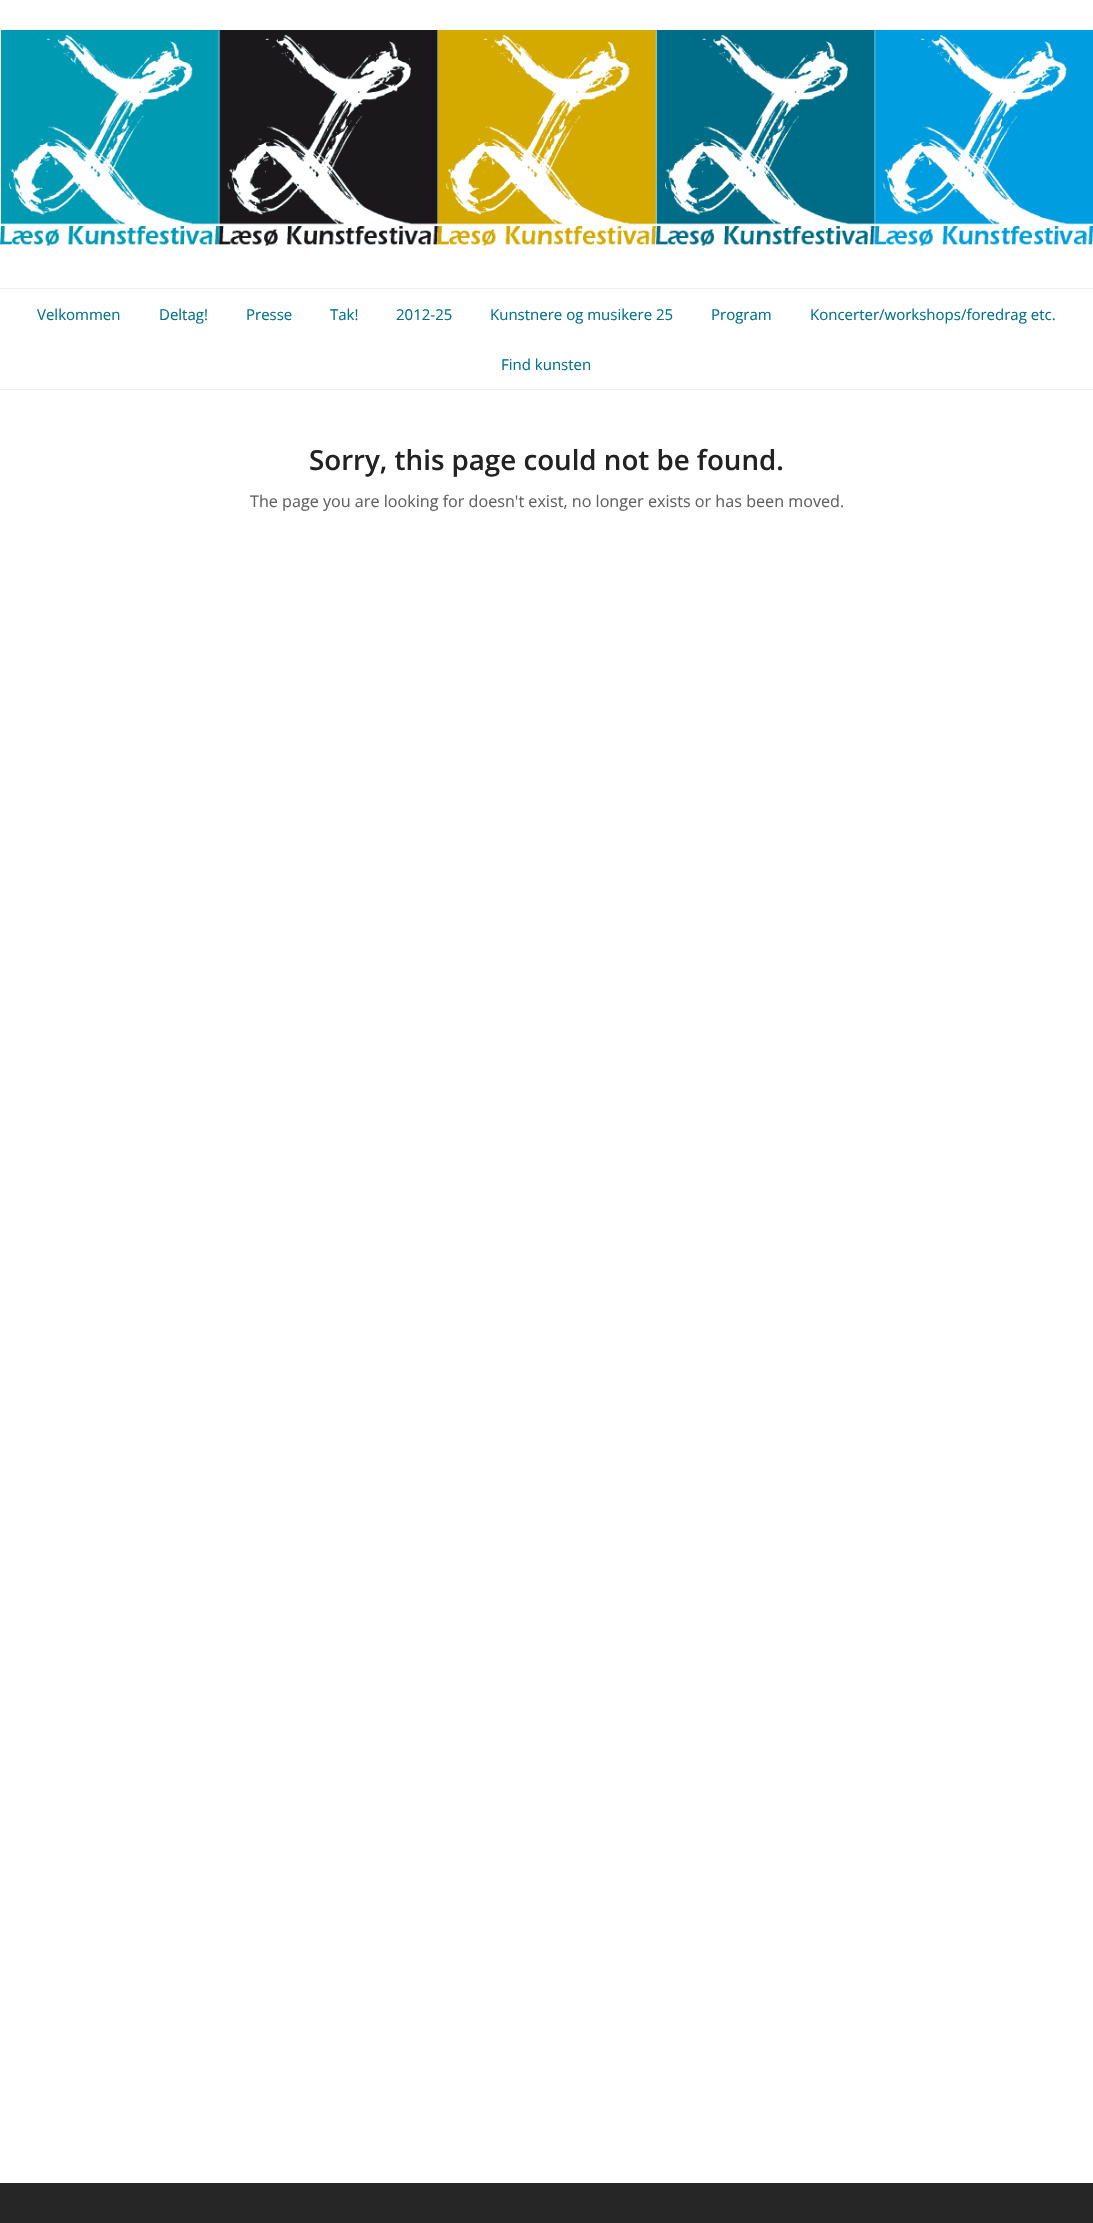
void draw(SkCanvas* canvas) {
    SkPaint paint;
    paint.setAntiAlias(true);
    canvas->clear(0xFFFFFFFF);
    canvas->drawImageRect(SkImages::DeferredFromEncodedData(SkData::MakeFromFileName("img1.png")), SkRect::MakeXYWH(0, 30, 1093, 217), SkSamplingOptions());
    paint.setColor(0xFFEEEEEE);
    canvas->drawRect(SkRect::MakeXYWH(0, 288, 1093, 1), paint);
    canvas->drawRect(SkRect::MakeXYWH(0, 389, 1093, 1), paint);
    SkFont font1(fontMgr->matchFamilyStyle("Open Sans", SkFontStyle::Normal()), 15);
    font1.setSubpixel(true);
    paint.setColor(0xFF007389);
    canvas->drawString("Velkommen", 37, 320, font1, paint);
    canvas->drawString("Deltag!", 159, 320, font1, paint);
    canvas->drawString("Presse", 246, 320, font1, paint);
    canvas->drawString("Tak!", 330, 320, font1, paint);
    canvas->drawString("2012-25", 396, 320, font1, paint);
    canvas->drawString("Kunstnere og musikere 25", 490, 320, font1, paint);
    canvas->drawString("Program", 711, 320, font1, paint);
    canvas->drawString("Koncerter/workshops/foredrag etc.", 810, 320, font1, paint);
    canvas->drawString("Find kunsten", 501, 370, font1, paint);
    SkFont font2(fontMgr->matchFamilyStyle("Open Sans", SkFontStyle(600, SkFontStyle::kNormal_Width, SkFontStyle::kUpright_Slant)), 27.7f);
    font2.setSubpixel(true);
    paint.setColor(0xFF222222);
    canvas->drawString("Sorry, this page could not be found.", 309, 470, font2, paint);
    SkFont font3(fontMgr->matchFamilyStyle("Open Sans", SkFontStyle::Normal()), 16.15f);
    font3.setSubpixel(true);
    paint.setColor(0xFF616161);
    canvas->drawString("The page you are looking for doesn't exist, no longer exists or has been moved.", 250, 507, font3, paint);
    paint.setColor(0xFF262626);
    canvas->drawRect(SkRect::MakeXYWH(0, 2183, 1093, 40), paint);
}
